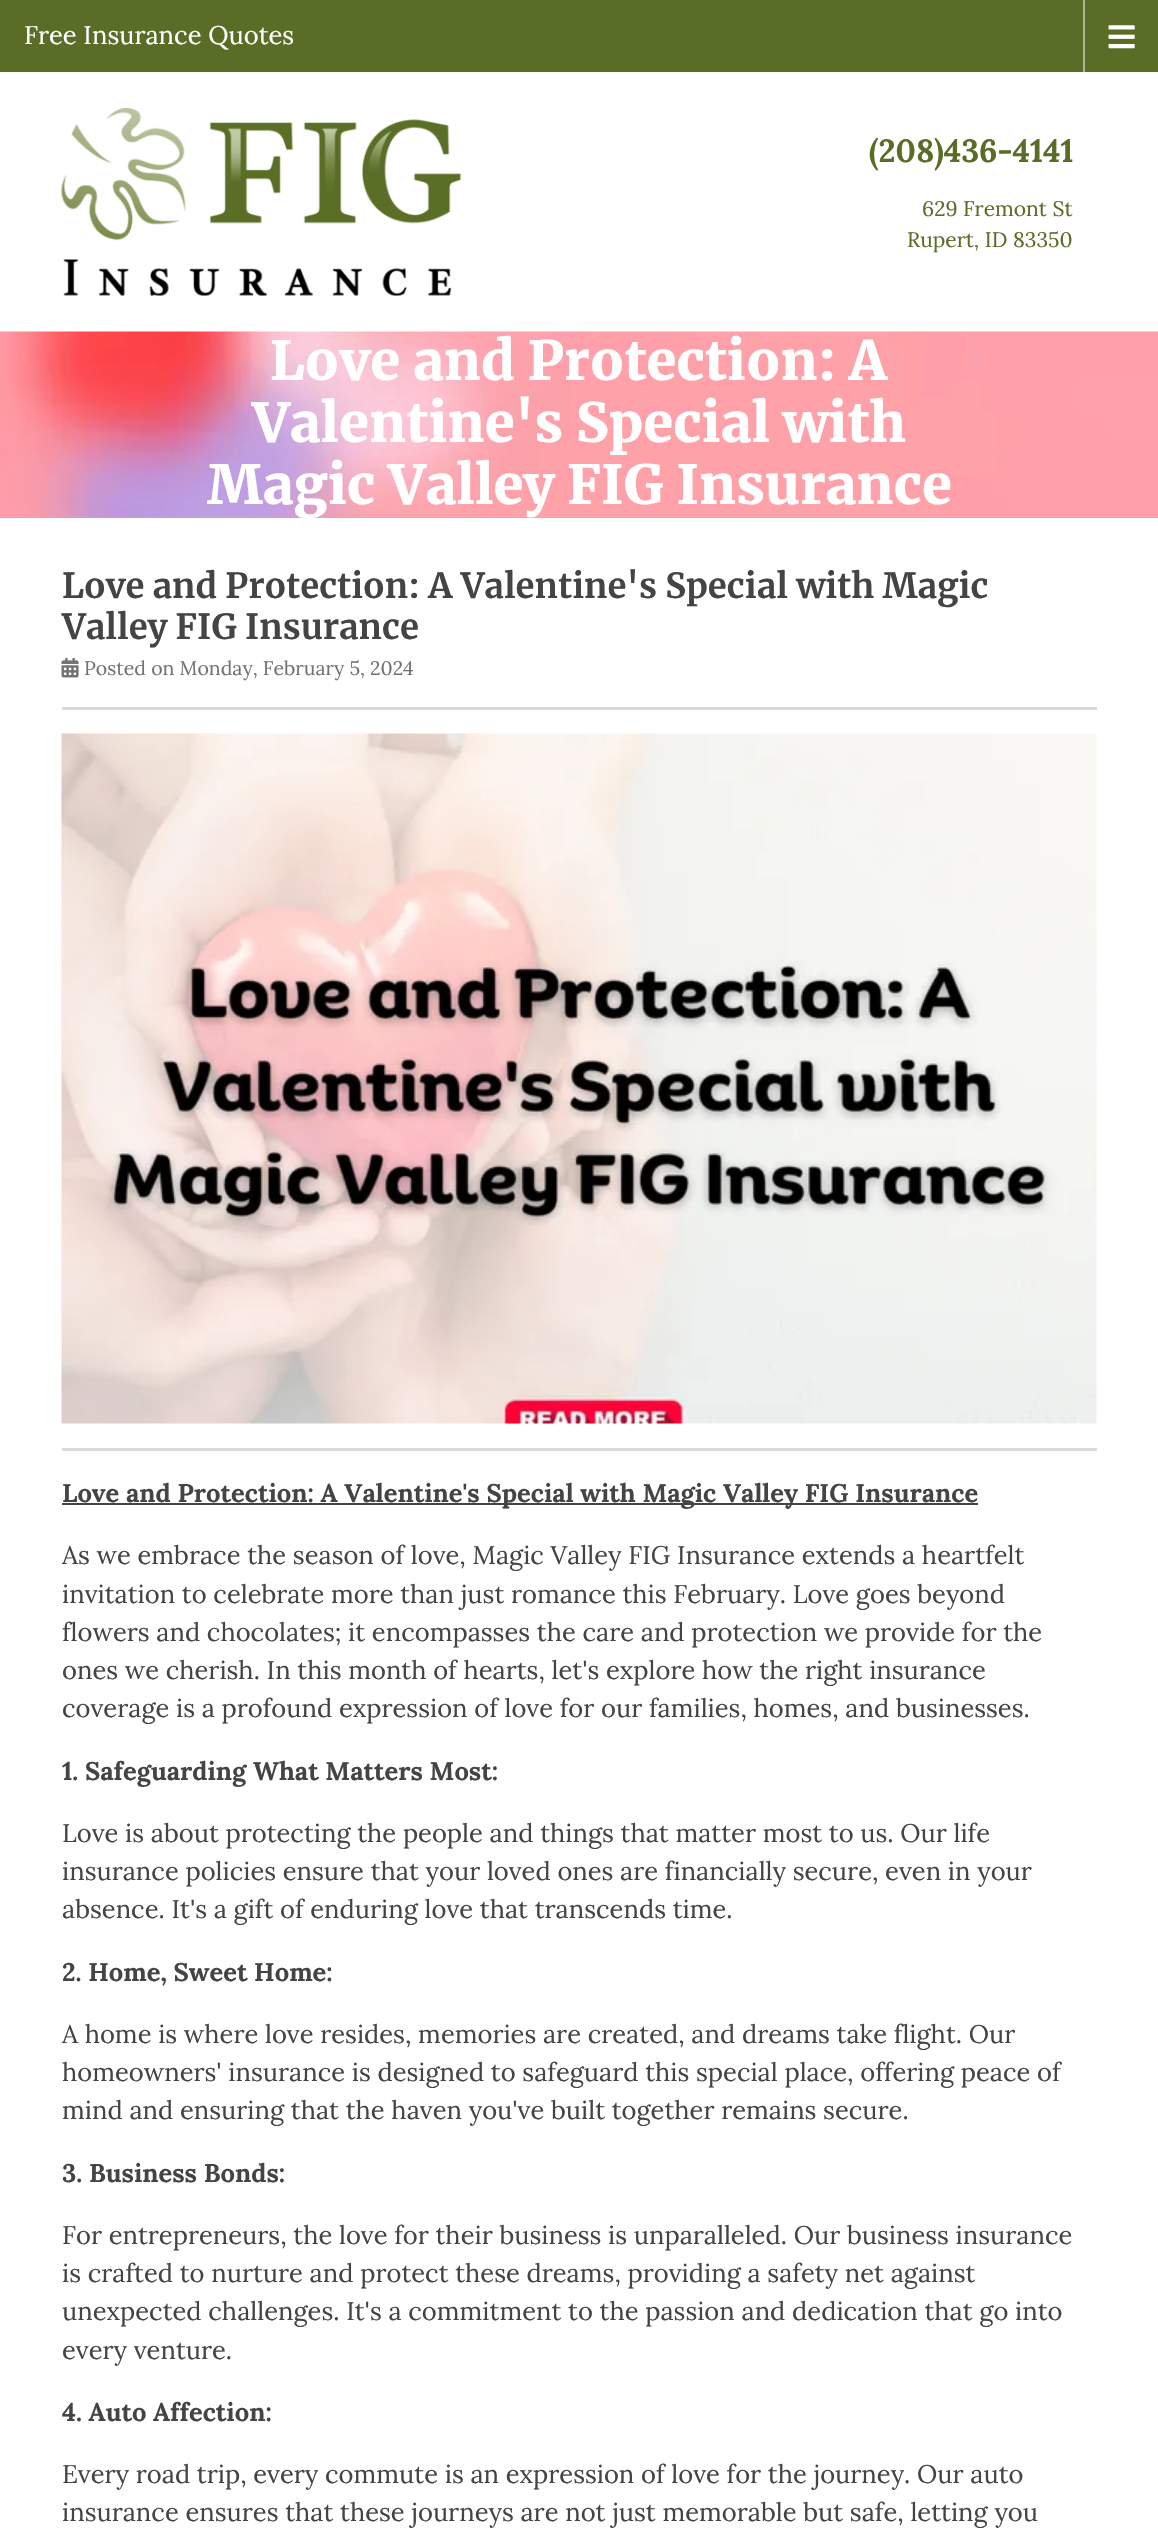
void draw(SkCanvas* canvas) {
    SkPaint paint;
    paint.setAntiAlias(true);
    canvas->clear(0xFFFFFFFF);
    paint.setColor(0xFF5A6D27);
    canvas->drawRect(SkRect::MakeXYWH(0, 0, 1158, 72), paint);
    paint.setColor(0xFFADB693);
    canvas->drawRect(SkRect::MakeXYWH(1083, 0, 2, 72), paint);
    SkFont font1(fontMgr->matchFamilyStyle("Lora", SkFontStyle::Normal()), 25.5f);
    font1.setSubpixel(true);
    paint.setColor(0xFFFFFFFF);
    canvas->drawString("Free Insurance Quotes", 24, 44, font1, paint);
    canvas->drawImageRect(SkImages::DeferredFromEncodedData(SkData::MakeFromFileName("img1.png")), SkRect::MakeXYWH(1108, 25, 27, 24), SkSamplingOptions());
    canvas->drawImageRect(SkImages::DeferredFromEncodedData(SkData::MakeFromFileName("img2.png")), SkRect::MakeXYWH(61, 108, 400, 188), SkSamplingOptions());
    SkFont font2(fontMgr->matchFamilyStyle("Lora", SkFontStyle::Bold()), 32);
    font2.setSubpixel(true);
    paint.setColor(0xFF5A6D27);
    canvas->drawString("(208)436-4141", 869, 162, font2, paint);
    SkFont font3(fontMgr->matchFamilyStyle("Lora", SkFontStyle::Normal()), 21);
    font3.setSubpixel(true);
    canvas->drawString("629 Fremont St", 922, 216, font3, paint);
    canvas->drawString("Rupert, ID 83350", 907, 247, font3, paint);
    paint.setColor(0xFFF79DAD);
    canvas->drawRect(SkRect::MakeXYWH(0, 517, 1158, 1), paint);
    canvas->drawImageRect(SkImages::DeferredFromEncodedData(SkData::MakeFromFileName("img3.png")), SkRect::MakeXYWH(0, 331, 1158, 187), SkSamplingOptions());
    SkFont font4(fontMgr->matchFamilyStyle("Merriweather", SkFontStyle(900, SkFontStyle::kNormal_Width, SkFontStyle::kUpright_Slant)), 54);
    font4.setSubpixel(true);
    paint.setColor(0xFFFFFFFF);
    canvas->drawString("Love and Protection: A", 270, 380, font4, paint);
    canvas->drawString("Valentine's Special with", 252, 442, font4, paint);
    canvas->drawString("Magic Valley FIG Insurance", 207, 504, font4, paint);
    SkFont font5(fontMgr->matchFamilyStyle("Merriweather", SkFontStyle::Bold()), 34.5f);
    font5.setSubpixel(true);
    paint.setColor(0xFF444444);
    canvas->drawString("Love and Protection: A Valentine's Special with Magic", 62, 598, font5, paint);
    canvas->drawString("Valley FIG Insurance", 62, 639, font5, paint);
    canvas->drawImageRect(SkImages::DeferredFromEncodedData(SkData::MakeFromFileName("img4.png")), SkRect::MakeXYWH(61, 657, 18, 21), SkSamplingOptions());
    SkFont font6(fontMgr->matchFamilyStyle("Lora", SkFontStyle::Normal()), 19.5f);
    font6.setSubpixel(true);
    paint.setColor(0xFF737373);
    canvas->drawString("Posted on Monday, February 5, 2024", 84, 675, font6, paint);
    paint.setColor(0xFFDADADA);
    canvas->drawRect(SkRect::MakeXYWH(62, 707, 1035, 3), paint);
    canvas->drawImageRect(SkImages::DeferredFromEncodedData(SkData::MakeFromFileName("img5.png")), SkRect::MakeXYWH(61, 733, 1036, 691), SkSamplingOptions());
    canvas->drawRect(SkRect::MakeXYWH(62, 1448, 1035, 3), paint);
    paint.setColor(0xFF444444);
    canvas->drawRect(SkRect::MakeXYWH(62, 1503, 916, 2), paint);
    SkFont font7(fontMgr->matchFamilyStyle("Lora", SkFontStyle::Bold()), 25.5f);
    font7.setSubpixel(true);
    canvas->drawString("Love and Protection: A Valentine's Special with Magic Valley FIG Insurance", 62, 1502, font7, paint);
    canvas->drawString("As we embrace the season of love, Magic Valley FIG Insurance extends a heartfelt", 62, 1564, font1, paint);
    canvas->drawString("invitation to celebrate more than just romance this February. Love goes beyond", 62, 1603, font1, paint);
    canvas->drawString("flowers and chocolates; it encompasses the care and protection we provide for the", 62, 1641, font1, paint);
    canvas->drawString("ones we cherish. In this month of hearts, let's explore how the right insurance", 62, 1679, font1, paint);
    canvas->drawString("coverage is a profound expression of love for our families, homes, and businesses.", 62, 1717, font1, paint);
    canvas->drawString("1. Safeguarding What Matters Most:", 62, 1780, font7, paint);
    canvas->drawString("Love is about protecting the people and things that matter most to us. Our life", 62, 1842, font1, paint);
    canvas->drawString("insurance policies ensure that your loved ones are financially secure, even in your", 62, 1880, font1, paint);
    canvas->drawString("absence. It's a gift of enduring love that transcends time.", 62, 1918, font1, paint);
    canvas->drawString("2. Home, Sweet Home:", 62, 1981, font7, paint);
    canvas->drawString("A home is where love resides, memories are created, and dreams take flight. Our", 62, 2043, font1, paint);
    canvas->drawString("homeowners' insurance is designed to safeguard this special place, offering peace of", 62, 2081, font1, paint);
    canvas->drawString("mind and ensuring that the haven you've built together remains secure.", 62, 2119, font1, paint);
    canvas->drawString("3. Business Bonds:", 62, 2182, font7, paint);
    canvas->drawString("For entrepreneurs, the love for their business is unparalleled. Our business insurance", 62, 2244, font1, paint);
    canvas->drawString("is crafted to nurture and protect these dreams, providing a safety net against", 62, 2282, font1, paint);
    canvas->drawString("unexpected challenges. It's a commitment to the passion and dedication that go into", 62, 2320, font1, paint);
    canvas->drawString("every venture.", 62, 2359, font1, paint);
    canvas->drawString("4. Auto Affection:", 62, 2421, font7, paint);
    canvas->drawString("Every road trip, every commute is an expression of love for the journey. Our auto", 62, 2483, font1, paint);
    canvas->drawString("insurance ensures that these journeys are not just memorable but safe, letting you", 62, 2521, font1, paint);
}
